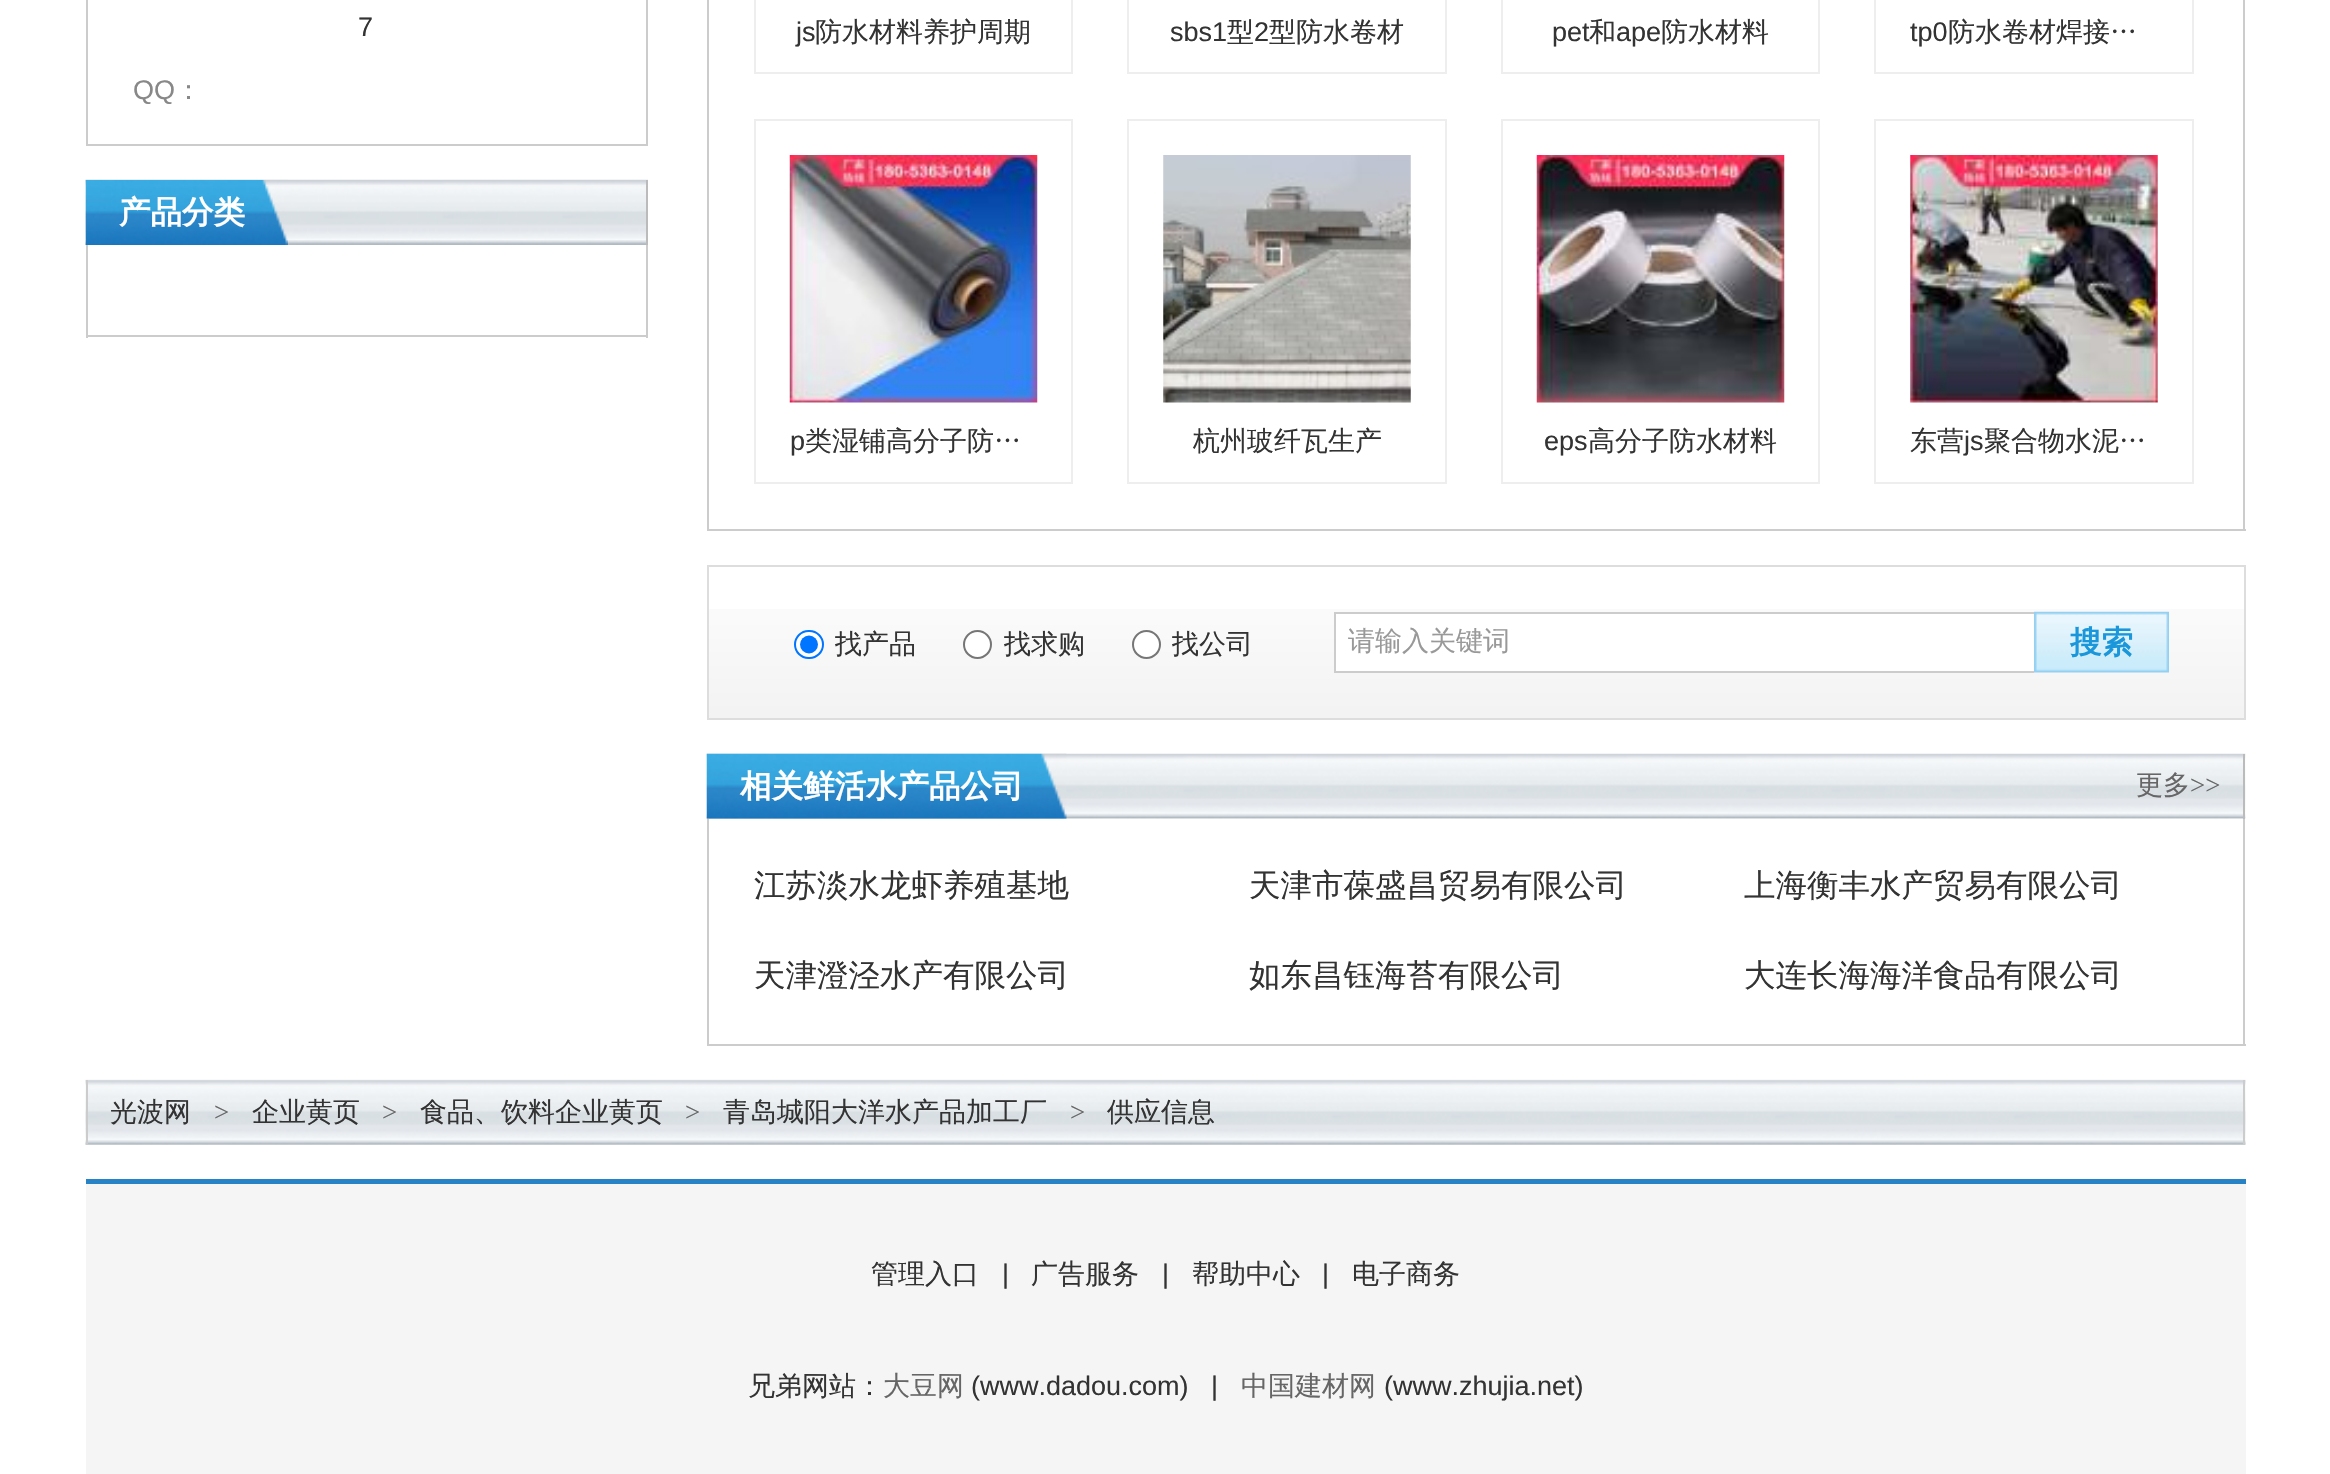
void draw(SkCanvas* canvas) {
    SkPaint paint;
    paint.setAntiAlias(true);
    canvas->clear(0xFFFFFFFF);
    paint.setColor(0xFFCCCCCC);
    canvas->drawRect(SkRect::MakeXYWH(646, 0, 2, 146), paint);
    canvas->drawRect(SkRect::MakeXYWH(86, 144, 562, 2), paint);
    canvas->drawRect(SkRect::MakeXYWH(86, 0, 2, 146), paint);
    SkFont font1(fontMgr->matchFamilyStyle("Liberation Sans", SkFontStyle::Normal()), 27);
    font1.setSubpixel(true);
    paint.setColor(0xFF333333);
    canvas->drawString("7", 358, 36, font1, paint);
    paint.setColor(0xFF888888);
    canvas->drawString("QQ", 133, 99, font1, paint);
    SkFont font2(fontMgr->matchFamilyStyle("WenQuanYi Zen Hei", SkFontStyle(500, SkFontStyle::kNormal_Width, SkFontStyle::kUpright_Slant)), 27);
    font2.setSubpixel(true);
    canvas->drawString("：", 175, 99, font2, paint);
    canvas->drawImageRect(SkImages::DeferredFromEncodedData(SkData::MakeFromFileName("img1.png")), SkRect::MakeXYWH(85, 179, 563, 66), SkSamplingOptions());
    paint.setColor(0xFFBBBBBB);
    canvas->drawRect(SkRect::MakeXYWH(646, 180, 2, 65), paint);
    canvas->drawImageRect(SkImages::DeferredFromEncodedData(SkData::MakeFromFileName("img2.png")), SkRect::MakeXYWH(85, 179, 203, 66), SkSamplingOptions());
    SkFont font3(fontMgr->matchFamilyStyle("WenQuanYi Zen Hei", SkFontStyle::Bold()), 31.5f);
    font3.setSubpixel(true);
    paint.setColor(0xFFFFFFFF);
    canvas->drawString("产品分类", 119, 223, font3, paint);
    paint.setColor(0xFFCCCCCC);
    canvas->drawRect(SkRect::MakeXYWH(646, 245, 2, 93), paint);
    canvas->drawRect(SkRect::MakeXYWH(86, 335, 562, 2), paint);
    canvas->drawRect(SkRect::MakeXYWH(86, 245, 2, 93), paint);
    canvas->drawRect(SkRect::MakeXYWH(2243, 0, 2, 531), paint);
    canvas->drawRect(SkRect::MakeXYWH(707, 529, 1539, 2), paint);
    canvas->drawRect(SkRect::MakeXYWH(707, 0, 2, 531), paint);
    paint.setStyle(SkPaint::kStroke_Style);
    paint.setStrokeWidth(2);
    paint.setColor(0xFFEEEEEE);
    canvas->drawRect(SkRect::MakeXYWH(755, -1, 317, 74), paint);
    paint.setStyle(SkPaint::kFill_Style);
    paint.setColor(0xFF333333);
    canvas->drawString("js", 796, 41, font1, paint);
    canvas->drawString("防水材料养护周期", 815, 41, font2, paint);
    paint.setStyle(SkPaint::kStroke_Style);
    paint.setColor(0xFFEEEEEE);
    canvas->drawRect(SkRect::MakeXYWH(1128, -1, 318, 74), paint);
    paint.setStyle(SkPaint::kFill_Style);
    paint.setColor(0xFF333333);
    canvas->drawString("sbs1", 1170, 41, font1, paint);
    canvas->drawString("型", 1227, 41, font2, paint);
    canvas->drawString("2", 1254, 41, font1, paint);
    canvas->drawString("型防水卷材", 1269, 41, font2, paint);
    paint.setStyle(SkPaint::kStroke_Style);
    paint.setColor(0xFFEEEEEE);
    canvas->drawRect(SkRect::MakeXYWH(1502, -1, 317, 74), paint);
    paint.setStyle(SkPaint::kFill_Style);
    paint.setColor(0xFF333333);
    canvas->drawString("pet", 1552, 41, font1, paint);
    canvas->drawString("和", 1589, 41, font2, paint);
    canvas->drawString("ape", 1616, 41, font1, paint);
    canvas->drawString("防水材料", 1661, 41, font2, paint);
    paint.setStyle(SkPaint::kStroke_Style);
    paint.setColor(0xFFEEEEEE);
    canvas->drawRect(SkRect::MakeXYWH(1875, -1, 318, 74), paint);
    paint.setStyle(SkPaint::kFill_Style);
    paint.setColor(0xFF333333);
    canvas->drawString("tp0", 1910, 41, font1, paint);
    canvas->drawString("防水卷材焊接…", 1948, 41, font2, paint);
    paint.setStyle(SkPaint::kStroke_Style);
    paint.setColor(0xFFEEEEEE);
    canvas->drawRect(SkRect::MakeXYWH(755, 120, 317, 363), paint);
    canvas->drawImageRect(SkImages::DeferredFromEncodedData(SkData::MakeFromFileName("img3.png")), SkRect::MakeXYWH(789, 155, 249, 248), SkSamplingOptions());
    paint.setStyle(SkPaint::kFill_Style);
    paint.setColor(0xFF333333);
    canvas->drawString("p", 790, 450, font1, paint);
    canvas->drawString("类湿铺高分子防…", 805, 450, font2, paint);
    paint.setStyle(SkPaint::kStroke_Style);
    paint.setColor(0xFFEEEEEE);
    canvas->drawRect(SkRect::MakeXYWH(1128, 120, 318, 363), paint);
    canvas->drawImageRect(SkImages::DeferredFromEncodedData(SkData::MakeFromFileName("img4.png")), SkRect::MakeXYWH(1163, 155, 248, 248), SkSamplingOptions());
    paint.setStyle(SkPaint::kFill_Style);
    paint.setColor(0xFF333333);
    canvas->drawString("杭州玻纤瓦生产", 1193, 450, font2, paint);
    paint.setStyle(SkPaint::kStroke_Style);
    paint.setColor(0xFFEEEEEE);
    canvas->drawRect(SkRect::MakeXYWH(1502, 120, 317, 363), paint);
    canvas->drawImageRect(SkImages::DeferredFromEncodedData(SkData::MakeFromFileName("img5.png")), SkRect::MakeXYWH(1536, 155, 249, 248), SkSamplingOptions());
    paint.setStyle(SkPaint::kFill_Style);
    paint.setColor(0xFF333333);
    canvas->drawString("eps", 1544, 450, font1, paint);
    canvas->drawString("高分子防水材料", 1588, 450, font2, paint);
    paint.setStyle(SkPaint::kStroke_Style);
    paint.setColor(0xFFEEEEEE);
    canvas->drawRect(SkRect::MakeXYWH(1875, 120, 318, 363), paint);
    canvas->drawImageRect(SkImages::DeferredFromEncodedData(SkData::MakeFromFileName("img6.png")), SkRect::MakeXYWH(1910, 155, 248, 248), SkSamplingOptions());
    paint.setStyle(SkPaint::kFill_Style);
    paint.setColor(0xFF333333);
    canvas->drawString("东营", 1910, 450, font2, paint);
    canvas->drawString("js", 1964, 450, font1, paint);
    canvas->drawString("聚合物水泥…", 1984, 450, font2, paint);
    canvas->drawImageRect(SkImages::DeferredFromEncodedData(SkData::MakeFromFileName("img7.png")), SkRect::MakeXYWH(709, 609, 1535, 109), SkSamplingOptions());
    paint.setStyle(SkPaint::kStroke_Style);
    paint.setColor(0xFFDDDDDD);
    canvas->drawRect(SkRect::MakeXYWH(708, 566, 1537, 153), paint);
    paint.setStyle(SkPaint::kFill_Style);
    paint.setColor(0xFFFFFFFF);
    canvas->drawRoundRect(SkRect::MakeXYWH(795, 631, 28, 27), 13.5f, 13.5f, paint);
    paint.setStyle(SkPaint::kStroke_Style);
    paint.setColor(0xFF0075FF);
    canvas->drawRoundRect(SkRect::MakeXYWH(795, 631, 28, 27), 13.5f, 13.5f, paint);
    paint.setStyle(SkPaint::kFill_Style);
    canvas->drawCircle(809, 644.5f, 9, paint);
    paint.setColor(0xFF333333);
    canvas->drawString("找产品", 835, 653, font2, paint);
    paint.setColor(0xFFFFFFFF);
    canvas->drawCircle(977.5f, 644.5f, 13.5f, paint);
    paint.setStyle(SkPaint::kStroke_Style);
    paint.setColor(0xFF767676);
    canvas->drawCircle(977.5f, 644.5f, 13.5f, paint);
    paint.setStyle(SkPaint::kFill_Style);
    paint.setColor(0xFF333333);
    canvas->drawString("找求购", 1004, 653, font2, paint);
    paint.setColor(0xFFFFFFFF);
    canvas->drawCircle(1146.5f, 644.5f, 13.5f, paint);
    paint.setStyle(SkPaint::kStroke_Style);
    paint.setColor(0xFF767676);
    canvas->drawCircle(1146.5f, 644.5f, 13.5f, paint);
    paint.setStyle(SkPaint::kFill_Style);
    paint.setColor(0xFF333333);
    canvas->drawString("找公司", 1172, 653, font2, paint);
    paint.setColor(0xFFFFFFFF);
    canvas->drawRect(SkRect::MakeXYWH(1336, 614, 698, 57), paint);
    paint.setColor(0xFFCCCCCC);
    canvas->drawRect(SkRect::MakeXYWH(1334, 612, 700, 2), paint);
    canvas->drawRect(SkRect::MakeXYWH(1334, 671, 700, 2), paint);
    canvas->drawRect(SkRect::MakeXYWH(1334, 612, 2, 61), paint);
    paint.setColor(0xFF999999);
    canvas->drawString("请输入关键词", 1348, 650, font2, paint);
    canvas->drawImageRect(SkImages::DeferredFromEncodedData(SkData::MakeFromFileName("img8.png")), SkRect::MakeXYWH(2034, 611, 135, 62), SkSamplingOptions());
    paint.setColor(0xFF1A97DA);
    canvas->drawString("搜索", 2070, 653, font3, paint);
    canvas->drawImageRect(SkImages::DeferredFromEncodedData(SkData::MakeFromFileName("img9.png")), SkRect::MakeXYWH(706, 753, 1540, 66), SkSamplingOptions());
    paint.setColor(0xFFBBBBBB);
    canvas->drawRect(SkRect::MakeXYWH(2243, 754, 2, 65), paint);
    canvas->drawImageRect(SkImages::DeferredFromEncodedData(SkData::MakeFromFileName("img10.png")), SkRect::MakeXYWH(706, 753, 361, 66), SkSamplingOptions());
    paint.setColor(0xFFFFFFFF);
    canvas->drawString("相关鲜活水产品公司", 740, 797, font3, paint);
    paint.setColor(0xFF666666);
    canvas->drawString("更多", 2136, 794, font2, paint);
    SkFont font4(fontMgr->matchFamilyStyle("Liberation Serif", SkFontStyle::Normal()), 27);
    font4.setSubpixel(true);
    canvas->drawString(">>", 2190, 794, font4, paint);
    paint.setColor(0xFFCCCCCC);
    canvas->drawRect(SkRect::MakeXYWH(2243, 819, 2, 227), paint);
    canvas->drawRect(SkRect::MakeXYWH(707, 1044, 1539, 2), paint);
    canvas->drawRect(SkRect::MakeXYWH(707, 819, 2, 227), paint);
    SkFont font5(fontMgr->matchFamilyStyle("WenQuanYi Zen Hei", SkFontStyle(500, SkFontStyle::kNormal_Width, SkFontStyle::kUpright_Slant)), 31.5f);
    font5.setSubpixel(true);
    paint.setColor(0xFF333333);
    canvas->drawString("江苏淡水龙虾养殖基地", 754, 896, font5, paint);
    canvas->drawString("天津市葆盛昌贸易有限公司", 1249, 896, font5, paint);
    canvas->drawString("上海衡丰水产贸易有限公司", 1744, 896, font5, paint);
    canvas->drawString("天津澄泾水产有限公司", 754, 986, font5, paint);
    canvas->drawString("如东昌钰海苔有限公司", 1249, 986, font5, paint);
    canvas->drawString("大连长海海洋食品有限公司", 1744, 986, font5, paint);
    canvas->drawImageRect(SkImages::DeferredFromEncodedData(SkData::MakeFromFileName("img11.png")), SkRect::MakeXYWH(85, 1079, 2161, 66), SkSamplingOptions());
    paint.setColor(0xFFCCCCCC);
    canvas->drawRect(SkRect::MakeXYWH(2243, 1080, 2, 65), paint);
    canvas->drawRect(SkRect::MakeXYWH(86, 1080, 2, 65), paint);
    paint.setColor(0xFF333333);
    canvas->drawString("光波网", 110, 1121, font2, paint);
    paint.setColor(0xFF666666);
    canvas->drawString(">", 214, 1121, font4, paint);
    paint.setColor(0xFF333333);
    canvas->drawString("企业黄页", 252, 1121, font2, paint);
    paint.setColor(0xFF666666);
    canvas->drawString(">", 382, 1121, font4, paint);
    paint.setColor(0xFF333333);
    canvas->drawString("食品、饮料企业黄页", 420, 1121, font2, paint);
    paint.setColor(0xFF666666);
    canvas->drawString(">", 685, 1121, font4, paint);
    paint.setColor(0xFF333333);
    canvas->drawString("青岛城阳大洋水产品加工厂", 723, 1121, font2, paint);
    paint.setColor(0xFF666666);
    canvas->drawString(">", 1070, 1121, font4, paint);
    paint.setColor(0xFF333333);
    canvas->drawString("供应信息", 1107, 1121, font2, paint);
    paint.setColor(0xFFF5F5F5);
    canvas->drawRect(SkRect::MakeXYWH(86, 1184, 2160, 290), paint);
    paint.setColor(0xFF2783C6);
    canvas->drawRect(SkRect::MakeXYWH(86, 1179, 2160, 5), paint);
    paint.setColor(0xFF333333);
    canvas->drawString("管理入口", 871, 1283, font2, paint);
    canvas->drawString("|", 1002, 1283, font1, paint);
    canvas->drawString("广告服务", 1031, 1283, font2, paint);
    canvas->drawString("|", 1162, 1283, font1, paint);
    canvas->drawString("帮助中心", 1192, 1283, font2, paint);
    canvas->drawString("|", 1322, 1283, font1, paint);
    canvas->drawString("电子商务", 1352, 1283, font2, paint);
    canvas->drawString("兄弟网站：", 748, 1395, font2, paint);
    paint.setColor(0xFF666666);
    canvas->drawString("大豆网", 883, 1395, font2, paint);
    paint.setColor(0xFF333333);
    canvas->drawString("(www.dadou.com)   |", 971, 1395, font1, paint);
    paint.setColor(0xFF666666);
    canvas->drawString("中国建材网", 1241, 1395, font2, paint);
    paint.setColor(0xFF333333);
    canvas->drawString("(www.zhujia.net)", 1384, 1395, font1, paint);
}
